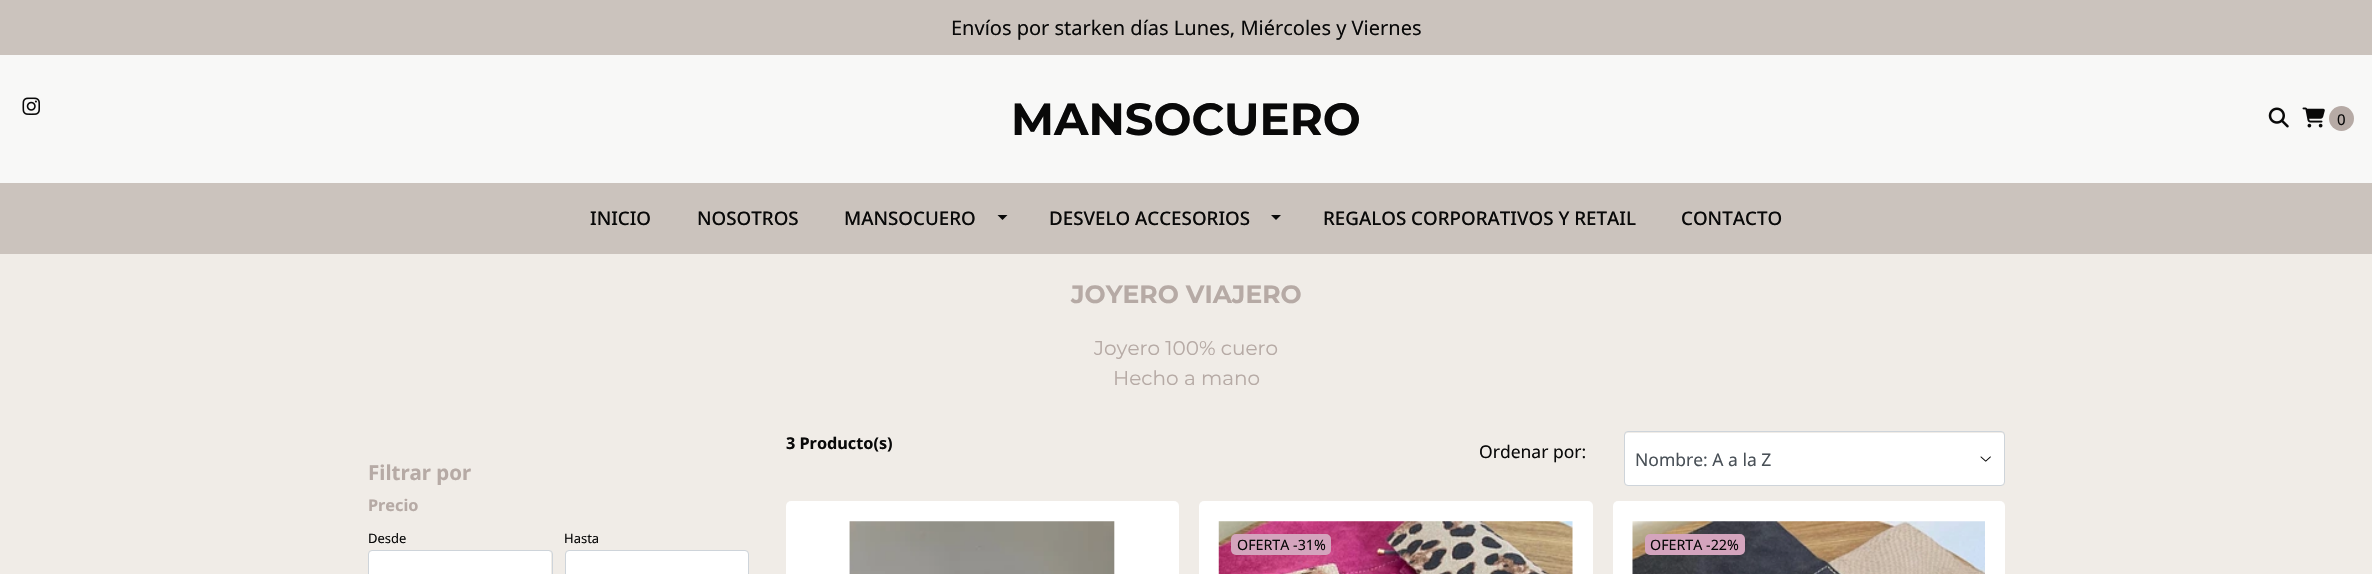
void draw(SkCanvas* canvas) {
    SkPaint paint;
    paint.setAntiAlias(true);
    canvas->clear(0xFFF0ECE7);
    paint.setColor(0xFFCBC3BD);
    canvas->drawRect(SkRect::MakeXYWH(0, 0, 2372, 55), paint);
    SkFont font1(fontMgr->matchFamilyStyle("Noto Sans", SkFontStyle::Normal()), 20);
    font1.setSubpixel(true);
    paint.setColor(0xFF090909);
    canvas->drawString("Envíos por starken días Lunes, Miércoles y Viernes", 951, 35, font1, paint);
    paint.setColor(0xFFF8F8F7);
    canvas->drawRect(SkRect::MakeXYWH(0, 55, 2372, 128), paint);
    canvas->drawImageRect(SkImages::DeferredFromEncodedData(SkData::MakeFromFileName("img1.png")), SkRect::MakeXYWH(22, 97, 18, 18), SkSamplingOptions());
    SkFont font2(fontMgr->matchFamilyStyle("Montserrat", SkFontStyle::Bold()), 45);
    font2.setSubpixel(true);
    paint.setColor(0xFF090909);
    canvas->drawString("MANSOCUERO", 1011, 135, font2, paint);
    canvas->drawImageRect(SkImages::DeferredFromEncodedData(SkData::MakeFromFileName("img2.png")), SkRect::MakeXYWH(2268, 107, 21, 21), SkSamplingOptions());
    canvas->drawImageRect(SkImages::DeferredFromEncodedData(SkData::MakeFromFileName("img3.png")), SkRect::MakeXYWH(2302, 107, 23, 21), SkSamplingOptions());
    paint.setColor(0xFFB6AAA5);
    canvas->drawCircle(2341.5f, 118.5f, 12.5f, paint);
    SkFont font3(fontMgr->matchFamilyStyle("Noto Sans", SkFontStyle::Normal()), 15);
    font3.setSubpixel(true);
    paint.setColor(0xFF090909);
    canvas->drawString("0", 2337, 125, font3, paint);
    paint.setColor(0xFFCBC3BD);
    canvas->drawRect(SkRect::MakeXYWH(0, 183, 2372, 71), paint);
    SkFont font4(fontMgr->matchFamilyStyle("Noto Sans", SkFontStyle(500, SkFontStyle::kNormal_Width, SkFontStyle::kUpright_Slant)), 18.75f);
    font4.setSubpixel(true);
    paint.setColor(0xFF090909);
    canvas->drawString("INICIO", 590, 225, font4, paint);
    canvas->drawString("NOSOTROS", 697, 225, font4, paint);
    canvas->drawString("MANSOCUERO", 844, 225, font4, paint);
    canvas->drawPath(SkPathBuilder().moveTo(997.5f, 215).lineTo(1007.5f, 215).lineTo(1002.5f, 220).close().detach(), paint);
    canvas->drawString("DESVELO ACCESORIOS", 1049, 225, font4, paint);
    canvas->drawPath(SkPathBuilder().moveTo(1271, 215).lineTo(1281, 215).lineTo(1276, 220).close().detach(), paint);
    canvas->drawString("REGALOS CORPORATIVOS Y RETAIL", 1323, 225, font4, paint);
    canvas->drawString("CONTACTO", 1681, 225, font4, paint);
    SkFont font5(fontMgr->matchFamilyStyle("Montserrat", SkFontStyle::Bold()), 25);
    font5.setSubpixel(true);
    paint.setColor(0xFFB6AAA5);
    canvas->drawString("JOYERO VIAJERO", 1071, 303, font5, paint);
    SkFont font6(fontMgr->matchFamilyStyle("Montserrat", SkFontStyle::Normal()), 20);
    font6.setSubpixel(true);
    canvas->drawString("Joyero 100% cuero", 1094, 355, font6, paint);
    canvas->drawString("Hecho a mano", 1113, 385, font6, paint);
    SkFont font7(fontMgr->matchFamilyStyle("Noto Sans", SkFontStyle::Bold()), 20.5f);
    font7.setSubpixel(true);
    canvas->drawString("Filtrar por", 368, 480, font7, paint);
    SkFont font8(fontMgr->matchFamilyStyle("Noto Sans", SkFontStyle::Bold()), 16.25f);
    font8.setSubpixel(true);
    canvas->drawString("Precio", 368, 511, font8, paint);
    SkFont font9(fontMgr->matchFamilyStyle("Noto Sans", SkFontStyle::Normal()), 13);
    font9.setSubpixel(true);
    paint.setColor(0xFF090909);
    canvas->drawString("Desde", 368, 543, font9, paint);
    paint.setColor(0xFFFFFFFF);
    canvas->drawRoundRect(SkRect::MakeXYWH(369, 551, 182, 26), 2.5f, 2.5f, paint);
    paint.setStyle(SkPaint::kStroke_Style);
    paint.setStrokeWidth(1);
    paint.setColor(0xFFCED4DA);
    canvas->drawRoundRect(SkRect::MakeXYWH(368.5f, 550.5f, 184, 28), 3.5f, 3.5f, paint);
    paint.setStyle(SkPaint::kFill_Style);
    paint.setColor(0xFF090909);
    canvas->drawString("Hasta", 564, 543, font9, paint);
    paint.setColor(0xFFFFFFFF);
    canvas->drawRoundRect(SkRect::MakeXYWH(566, 551, 182, 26), 2.5f, 2.5f, paint);
    paint.setStyle(SkPaint::kStroke_Style);
    paint.setColor(0xFFCED4DA);
    canvas->drawRoundRect(SkRect::MakeXYWH(565.5f, 550.5f, 183, 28), 3.5f, 3.5f, paint);
    paint.setStyle(SkPaint::kFill_Style);
    paint.setColor(0xFF090909);
    canvas->drawString("3 Producto(s)", 786, 449, font8, paint);
    SkFont font10(fontMgr->matchFamilyStyle("Noto Sans", SkFontStyle::Normal()), 17.5f);
    font10.setSubpixel(true);
    canvas->drawString("Ordenar por:", 1479, 458, font10, paint);
    paint.setColor(0xFFFFFFFF);
    canvas->drawRoundRect(SkRect::MakeXYWH(1625, 433, 379, 52), 2.5f, 2.5f, paint);
    canvas->drawImageRect(SkImages::DeferredFromEncodedData(SkData::MakeFromFileName("img4.png")), SkRect::MakeXYWH(1980, 456, 11, 6), SkSamplingOptions());
    paint.setStyle(SkPaint::kStroke_Style);
    paint.setColor(0xFFCED4DA);
    canvas->drawRoundRect(SkRect::MakeXYWH(1624.5f, 431.5f, 380, 54), 3.5f, 3.5f, paint);
    paint.setStyle(SkPaint::kFill_Style);
    paint.setColor(0xFF495057);
    canvas->drawString("Nombre: A a la Z", 1635, 466, font10, paint);
    paint.setColor(0xFFFFFFFF);
    canvas->drawRoundRect(SkRect::MakeXYWH(786, 501, 393, 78), 5, 5, paint);
    canvas->drawImageRect(SkImages::DeferredFromEncodedData(SkData::MakeFromFileName("img5.png")), SkRect::MakeXYWH(849, 521, 266, 53), SkSamplingOptions());
    canvas->drawRoundRect(SkRect::MakeXYWH(1199, 501, 394, 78), 5, 5, paint);
    canvas->drawImageRect(SkImages::DeferredFromEncodedData(SkData::MakeFromFileName("img6.png")), SkRect::MakeXYWH(1218, 521, 355, 53), SkSamplingOptions());
    paint.setColor(0xFFD4A4BD);
    canvas->drawRoundRect(SkRect::MakeXYWH(1231, 534, 100, 21), 5, 5, paint);
    SkFont font11(fontMgr->matchFamilyStyle("Noto Sans", SkFontStyle::Normal()), 14.25f);
    font11.setSubpixel(true);
    paint.setColor(0xFF090909);
    canvas->drawString("OFERTA -31%", 1237, 550, font11, paint);
    paint.setColor(0xFFFFFFFF);
    canvas->drawRoundRect(SkRect::MakeXYWH(1613, 501, 392, 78), 5, 5, paint);
    canvas->drawImageRect(SkImages::DeferredFromEncodedData(SkData::MakeFromFileName("img7.png")), SkRect::MakeXYWH(1632, 521, 353, 53), SkSamplingOptions());
    paint.setColor(0xFFD4A4BD);
    canvas->drawRoundRect(SkRect::MakeXYWH(1645, 534, 100, 21), 5, 5, paint);
    paint.setColor(0xFF090909);
    canvas->drawString("OFERTA -22%", 1650, 550, font11, paint);
}
